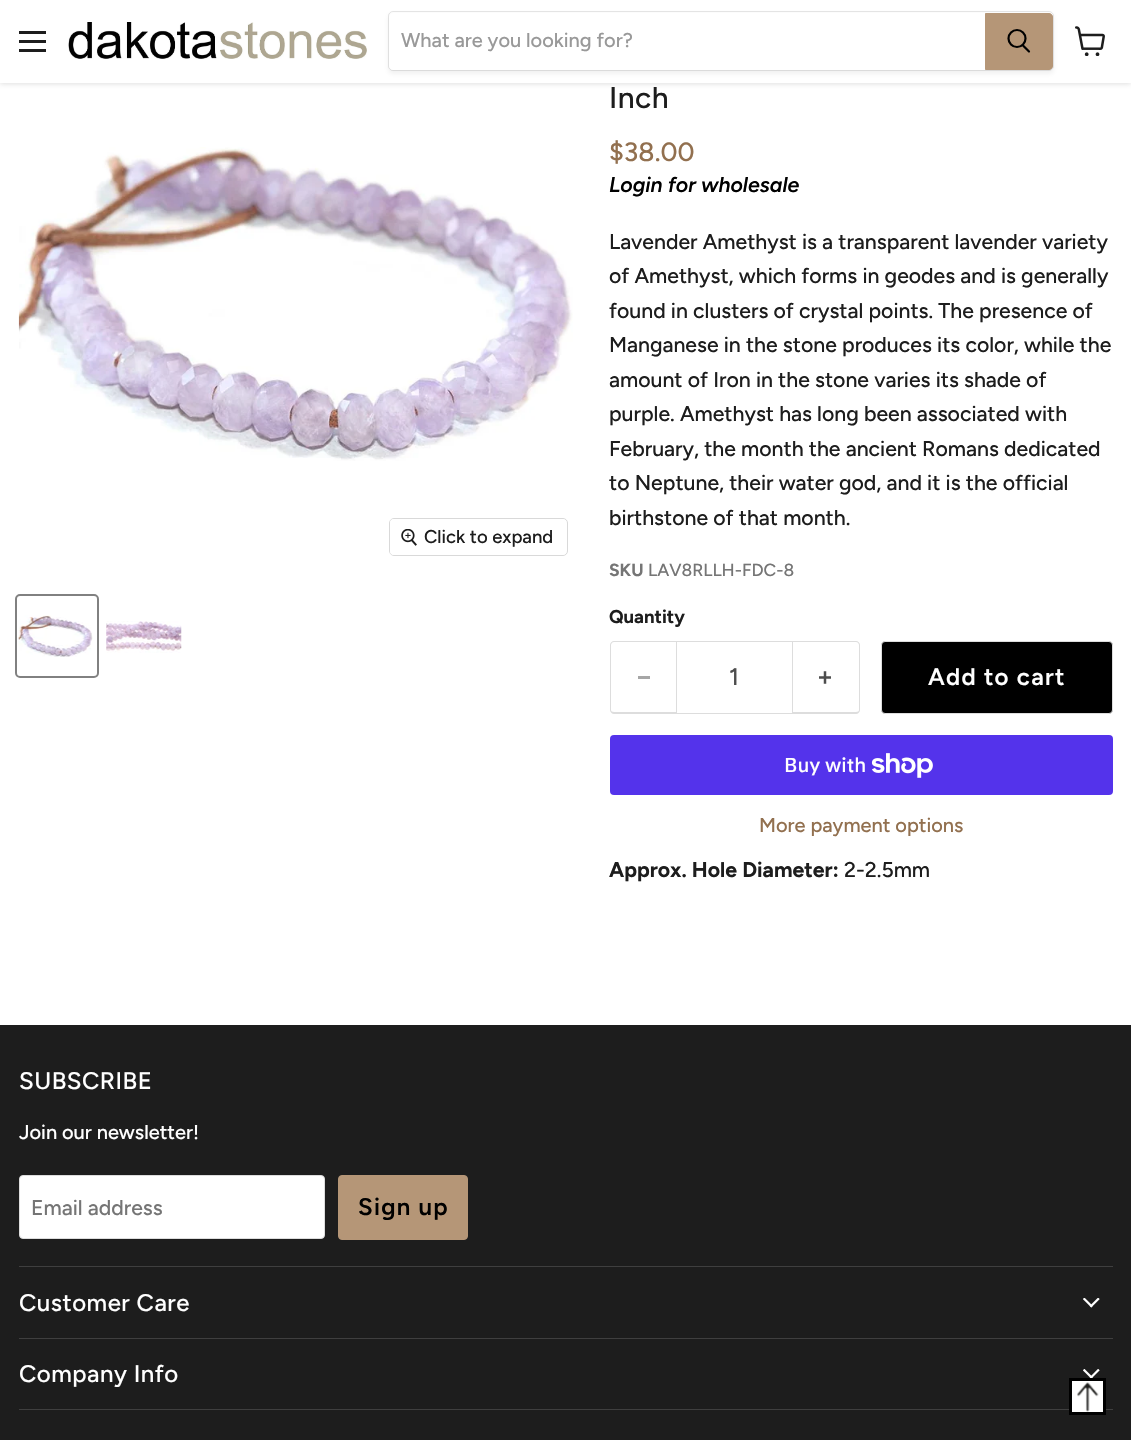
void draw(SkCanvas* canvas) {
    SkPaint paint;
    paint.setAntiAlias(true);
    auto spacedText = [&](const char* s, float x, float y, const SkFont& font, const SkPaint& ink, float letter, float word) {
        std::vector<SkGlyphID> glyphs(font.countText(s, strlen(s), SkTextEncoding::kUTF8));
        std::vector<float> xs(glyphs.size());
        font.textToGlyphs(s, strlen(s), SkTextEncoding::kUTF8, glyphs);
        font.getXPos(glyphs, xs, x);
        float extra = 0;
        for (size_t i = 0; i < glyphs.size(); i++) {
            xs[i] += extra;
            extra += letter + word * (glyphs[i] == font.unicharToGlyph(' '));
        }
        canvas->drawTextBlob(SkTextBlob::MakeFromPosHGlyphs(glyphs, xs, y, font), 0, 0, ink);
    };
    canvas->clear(0xFFFFFFFF);
    paint.setColor(0x40808080);
    paint.setMaskFilter(SkMaskFilter::MakeBlur(kNormal_SkBlurStyle, 2.5f));
    canvas->drawRect(SkRect::MakeXYWH(0, 1, 1131, 83), paint);
    paint.setMaskFilter(nullptr);
    paint.setColor(0xFFFFFFFF);
    canvas->drawRect(SkRect::MakeXYWH(0, 0, 1131, 83), paint);
    paint.setColor(0xFF1D1D1D);
    canvas->drawRect(SkRect::MakeXYWH(19, 31, 27, 3), paint);
    canvas->drawRect(SkRect::MakeXYWH(19, 40, 27, 3), paint);
    canvas->drawRect(SkRect::MakeXYWH(19, 49, 27, 3), paint);
    canvas->drawImageRect(SkImages::DeferredFromEncodedData(SkData::MakeFromFileName("img1.png")), SkRect::MakeXYWH(68, 22, 299, 37), SkSamplingOptions());
    paint.setColor(0x1C808080);
    paint.setMaskFilter(SkMaskFilter::MakeBlur(kNormal_SkBlurStyle, 2));
    canvas->drawRoundRect(SkRect::MakeXYWH(388, 14, 666, 60), 5, 5, paint);
    paint.setMaskFilter(nullptr);
    paint.setStyle(SkPaint::kStroke_Style);
    paint.setStrokeWidth(1);
    paint.setColor(0x33808080);
    canvas->drawRoundRect(SkRect::MakeXYWH(388.5f, 11.5f, 665, 59), 4.5f, 4.5f, paint);
    paint.setStyle(SkPaint::kFill_Style);
    paint.setColor(0xFFFFFFFF);
    canvas->drawPath(SkPathBuilder().moveTo(393, 13).lineTo(985, 13).lineTo(985, 70).lineTo(393, 70).cubicTo(391, 70, 389, 68, 389, 66).lineTo(389, 17).cubicTo(389, 15, 391, 13, 393, 13).close().detach(), paint);
    SkFont font1(fontMgr->matchFamilyStyle("Figtree", SkFontStyle(500, SkFontStyle::kNormal_Width, SkFontStyle::kUpright_Slant)), 20);
    font1.setSubpixel(true);
    paint.setColor(0xFF999999);
    canvas->drawString("What are you looking for?", 401, 47, font1, paint);
    paint.setColor(0xFFB59677);
    canvas->drawPath(SkPathBuilder().moveTo(985.5f, 13.5f).lineTo(1049, 13.5f).cubicTo(1051, 13.5f, 1052.5f, 15, 1052.5f, 17).lineTo(1052.5f, 66).cubicTo(1052.5f, 68, 1051, 69.5f, 1049, 69.5f).lineTo(985.5f, 69.5f).close().detach(), paint);
    paint.setStyle(SkPaint::kStroke_Style);
    canvas->drawPath(SkPathBuilder().moveTo(985.5f, 13.5f).lineTo(1049, 13.5f).cubicTo(1051, 13.5f, 1052.5f, 15, 1052.5f, 17).lineTo(1052.5f, 66).cubicTo(1052.5f, 68, 1051, 69.5f, 1049, 69.5f).lineTo(985.5f, 69.5f).close().detach(), paint);
    paint.setStrokeWidth(2.2f);
    paint.setStrokeCap(SkPaint::kRound_Cap);
    paint.setColor(0xFF000000);
    canvas->drawPath(SkPathBuilder().moveTo(1029, 51.5f).lineTo(1023, 45.5f).detach(), paint);
    paint.setStrokeCap(SkPaint::kButt_Cap);
    canvas->drawCircle(1017, 38.5f, 8.5f, paint);
    canvas->drawImageRect(SkImages::DeferredFromEncodedData(SkData::MakeFromFileName("img2.png")), SkRect::MakeXYWH(1075, 26, 30, 30), SkSamplingOptions());
    canvas->drawImageRect(SkImages::DeferredFromEncodedData(SkData::MakeFromFileName("img3.png")), SkRect::MakeXYWH(18, 147, 555, 314), SkSamplingOptions());
    paint.setStrokeWidth(1);
    paint.setColor(0xFFD9D9D9);
    canvas->drawRoundRect(SkRect::MakeXYWH(389.5f, 518.5f, 178, 37), 4.5f, 4.5f, paint);
    paint.setStyle(SkPaint::kFill_Style);
    paint.setColor(0xE6FFFFFF);
    canvas->drawRoundRect(SkRect::MakeXYWH(390, 519, 176, 36), 4, 4, paint);
    canvas->drawImageRect(SkImages::DeferredFromEncodedData(SkData::MakeFromFileName("img4.png")), SkRect::MakeXYWH(401, 529, 16, 17), SkSamplingOptions());
    SkFont font2(fontMgr->matchFamilyStyle("Figtree", SkFontStyle(500, SkFontStyle::kNormal_Width, SkFontStyle::kUpright_Slant)), 18.5f);
    font2.setSubpixel(true);
    paint.setColor(0xFF1D1D1D);
    canvas->drawString("Click to expand", 424, 543, font2, paint);
    paint.setStyle(SkPaint::kStroke_Style);
    paint.setStrokeWidth(2);
    paint.setColor(0xFF818181);
    canvas->drawRoundRect(SkRect::MakeXYWH(16, 595, 82, 82), 4, 4, paint);
    canvas->drawImageRect(SkImages::DeferredFromEncodedData(SkData::MakeFromFileName("img5.png")), SkRect::MakeXYWH(18, 615, 75, 42), SkSamplingOptions());
    canvas->drawImageRect(SkImages::DeferredFromEncodedData(SkData::MakeFromFileName("img6.png")), SkRect::MakeXYWH(106, 621, 76, 32), SkSamplingOptions());
    SkFont font3(fontMgr->matchFamilyStyle("Figtree", SkFontStyle(500, SkFontStyle::kNormal_Width, SkFontStyle::kUpright_Slant)), 30);
    font3.setSubpixel(true);
    paint.setStyle(SkPaint::kFill_Style);
    paint.setColor(0xFF1D1D1D);
    spacedText("Inch", 609, 108, font3, paint, 0.5f, 0);
    SkFont font4(fontMgr->matchFamilyStyle("Figtree", SkFontStyle(500, SkFontStyle::kNormal_Width, SkFontStyle::kUpright_Slant)), 26.5f);
    font4.setSubpixel(true);
    paint.setColor(0xFF92704F);
    canvas->drawString("$38.00", 609, 161, font4, paint);
    SkFont font5(fontMgr->matchFamilyStyle("Figtree", SkFontStyle(600, SkFontStyle::kNormal_Width, SkFontStyle::kItalic_Slant)), 21.25f);
    font5.setSubpixel(true);
    paint.setColor(0xFF000000);
    canvas->drawString("Login for wholesale", 609, 192, font5, paint);
    SkFont font6(fontMgr->matchFamilyStyle("Figtree", SkFontStyle(500, SkFontStyle::kNormal_Width, SkFontStyle::kUpright_Slant)), 21.25f);
    font6.setSubpixel(true);
    paint.setColor(0xFF1D1D1D);
    canvas->drawString("Lavender Amethyst is a transparent lavender variety", 609, 249, font6, paint);
    canvas->drawString("of Amethyst, which forms in geodes and is generally", 609, 283, font6, paint);
    canvas->drawString("found in clusters of crystal points. The presence of", 609, 318, font6, paint);
    canvas->drawString("Manganese in the stone produces its color, while the", 609, 352, font6, paint);
    canvas->drawString("amount of Iron in the stone varies its shade of", 609, 387, font6, paint);
    canvas->drawString("purple. Amethyst has long been associated with", 609, 421, font6, paint);
    canvas->drawString("February, the month the ancient Romans dedicated", 609, 456, font6, paint);
    canvas->drawString("to Neptune, their water god, and it is the official", 609, 490, font6, paint);
    canvas->drawString("birthstone of that month.", 609, 525, font6, paint);
    SkFont font7(fontMgr->matchFamilyStyle("Figtree", SkFontStyle::Bold()), 17.5f);
    font7.setSubpixel(true);
    paint.setColor(0xFF757575);
    canvas->drawString("SKU", 609, 576, font7, paint);
    SkFont font8(fontMgr->matchFamilyStyle("Figtree", SkFontStyle(500, SkFontStyle::kNormal_Width, SkFontStyle::kUpright_Slant)), 17.5f);
    font8.setSubpixel(true);
    canvas->drawString("LAV8RLLH-FDC-8", 648, 576, font8, paint);
    SkFont font9(fontMgr->matchFamilyStyle("Figtree", SkFontStyle::Bold()), 18.5f);
    font9.setSubpixel(true);
    paint.setColor(0xFF1D1D1D);
    canvas->drawString("Quantity", 609, 623, font9, paint);
    paint.setColor(0xFFDDDDDD);
    canvas->drawPath(SkPathBuilder(SkPathFillType::kEvenOdd).moveTo(614, 641).lineTo(676, 641).lineTo(676, 714).lineTo(614, 714).cubicTo(612, 714, 610, 712, 610, 710).lineTo(610, 645).cubicTo(610, 643, 612, 641, 614, 641).close().moveTo(614, 642).lineTo(676, 642).lineTo(676, 712).lineTo(614, 712).cubicTo(612, 712, 611, 711, 611, 710).lineTo(611, 645).cubicTo(611, 644, 612, 642, 614, 642).close().detach(), paint);
    paint.setColor(0xFFA6A6A6);
    canvas->drawRect(SkRect::MakeXYWH(638, 676, 12, 3), paint);
    paint.setStyle(SkPaint::kStroke_Style);
    paint.setStrokeWidth(1);
    paint.setColor(0xFFDDDDDD);
    canvas->drawRect(SkRect::MakeXYWH(676.5f, 641.5f, 116, 72), paint);
    SkFont font10(fontMgr->matchFamilyStyle("Figtree", SkFontStyle(500, SkFontStyle::kNormal_Width, SkFontStyle::kUpright_Slant)), 24);
    font10.setSubpixel(true);
    paint.setStyle(SkPaint::kFill_Style);
    paint.setColor(0xFF4D4D4D);
    canvas->drawString("1", 729, 685, font10, paint);
    paint.setColor(0xFFDDDDDD);
    canvas->drawPath(SkPathBuilder(SkPathFillType::kEvenOdd).moveTo(792, 641).lineTo(856, 641).cubicTo(858, 641, 860, 643, 860, 645).lineTo(860, 710).cubicTo(860, 712, 858, 714, 856, 714).lineTo(792, 714).close().moveTo(792, 642).lineTo(856, 642).cubicTo(858, 642, 859, 644, 859, 645).lineTo(859, 710).cubicTo(859, 711, 858, 712, 856, 712).lineTo(792, 712).close().detach(), paint);
    canvas->drawImageRect(SkImages::DeferredFromEncodedData(SkData::MakeFromFileName("img7.png")), SkRect::MakeXYWH(819, 671, 12, 13), SkSamplingOptions());
    paint.setColor(0xFF000000);
    canvas->drawRoundRect(SkRect::MakeXYWH(881.5f, 641.5f, 231, 72), 3.5f, 3.5f, paint);
    paint.setStyle(SkPaint::kStroke_Style);
    paint.setColor(0xFFDDDDDD);
    canvas->drawRoundRect(SkRect::MakeXYWH(881.5f, 641.5f, 231, 72), 3.5f, 3.5f, paint);
    SkFont font11(fontMgr->matchFamilyStyle("Figtree", SkFontStyle(600, SkFontStyle::kNormal_Width, SkFontStyle::kUpright_Slant)), 24);
    font11.setSubpixel(true);
    paint.setStyle(SkPaint::kFill_Style);
    paint.setColor(0xFFFFFFFF);
    spacedText("Add to cart", 928, 685, font11, paint, 1.25f, 0);
    paint.setColor(0xFF5433EB);
    canvas->drawRoundRect(SkRect::MakeXYWH(610, 735, 503, 60), 4, 4, paint);
    SkFont font12(fontMgr->matchFamilyStyle("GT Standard", SkFontStyle(500, SkFontStyle::kNormal_Width, SkFontStyle::kUpright_Slant)), 20);
    font12.setSubpixel(true);
    paint.setColor(0xFFFFFFFF);
    canvas->drawString("Buy with", 784, 772, font12, paint);
    canvas->drawImageRect(SkImages::DeferredFromEncodedData(SkData::MakeFromFileName("img8.png")), SkRect::MakeXYWH(871, 753, 62, 25), SkSamplingOptions());
    paint.setColor(0xFF92704F);
    canvas->drawString("More payment options", 759, 832, font1, paint);
    SkFont font13(fontMgr->matchFamilyStyle("Figtree", SkFontStyle::Bold()), 21.25f);
    font13.setSubpixel(true);
    paint.setColor(0xFF1D1D1D);
    canvas->drawString("Approx. Hole Diameter:", 609, 877, font13, paint);
    canvas->drawString("2-2.5mm", 844, 877, font6, paint);
    canvas->drawRect(SkRect::MakeXYWH(0, 1025, 1131, 415), paint);
    paint.setColor(0xFF3F3F3F);
    canvas->drawRect(SkRect::MakeXYWH(19, 1266, 1094, 1), paint);
    paint.setColor(0xFFFFFFFF);
    spacedText("SUBSCRIBE", 19, 1089, font10, paint, 0.5f, 0);
    canvas->drawString("Join our newsletter!", 19, 1139, font1, paint);
    canvas->drawRoundRect(SkRect::MakeXYWH(19.5f, 1175.5f, 305, 63), 3.5f, 3.5f, paint);
    paint.setStyle(SkPaint::kStroke_Style);
    paint.setColor(0xFFDDDDDD);
    canvas->drawRoundRect(SkRect::MakeXYWH(19.5f, 1175.5f, 305, 63), 3.5f, 3.5f, paint);
    paint.setStyle(SkPaint::kFill_Style);
    paint.setColor(0xFF757575);
    canvas->drawString("Email address", 31, 1215, font6, paint);
    paint.setColor(0xFFB59677);
    canvas->drawRoundRect(SkRect::MakeXYWH(338.5f, 1175.5f, 129, 64), 3.5f, 3.5f, paint);
    paint.setStyle(SkPaint::kStroke_Style);
    canvas->drawRoundRect(SkRect::MakeXYWH(338.5f, 1175.5f, 129, 64), 3.5f, 3.5f, paint);
    paint.setStyle(SkPaint::kFill_Style);
    paint.setColor(0xFF000000);
    spacedText("Sign up", 358, 1215, font11, paint, 1.25f, 0);
    paint.setColor(0xFF3F3F3F);
    canvas->drawRect(SkRect::MakeXYWH(19, 1338, 1094, 1), paint);
    paint.setColor(0xFFFFFFFF);
    spacedText("Customer Care", 19, 1311, font10, paint, 0.5f, 0);
    canvas->drawImageRect(SkImages::DeferredFromEncodedData(SkData::MakeFromFileName("img9.png")), SkRect::MakeXYWH(1083, 1298, 17, 10), SkSamplingOptions());
    paint.setColor(0xFF3F3F3F);
    canvas->drawRect(SkRect::MakeXYWH(19, 1409, 1094, 1), paint);
    paint.setColor(0xFFFFFFFF);
    spacedText("Company Info", 19, 1382, font10, paint, 0.5f, 0);
    canvas->drawImageRect(SkImages::DeferredFromEncodedData(SkData::MakeFromFileName("img10.png")), SkRect::MakeXYWH(1083, 1369, 17, 9), SkSamplingOptions());
    canvas->drawRect(SkRect::MakeXYWH(1072, 1381, 31, 31), paint);
    canvas->drawImageRect(SkImages::DeferredFromEncodedData(SkData::MakeFromFileName("img11.png")), SkRect::MakeXYWH(1077, 1382, 22, 30), SkSamplingOptions());
    paint.setStyle(SkPaint::kStroke_Style);
    paint.setStrokeWidth(3);
    paint.setColor(0xFF000000);
    canvas->drawRect(SkRect::MakeXYWH(1070.5f, 1379.5f, 34, 34), paint);
}
